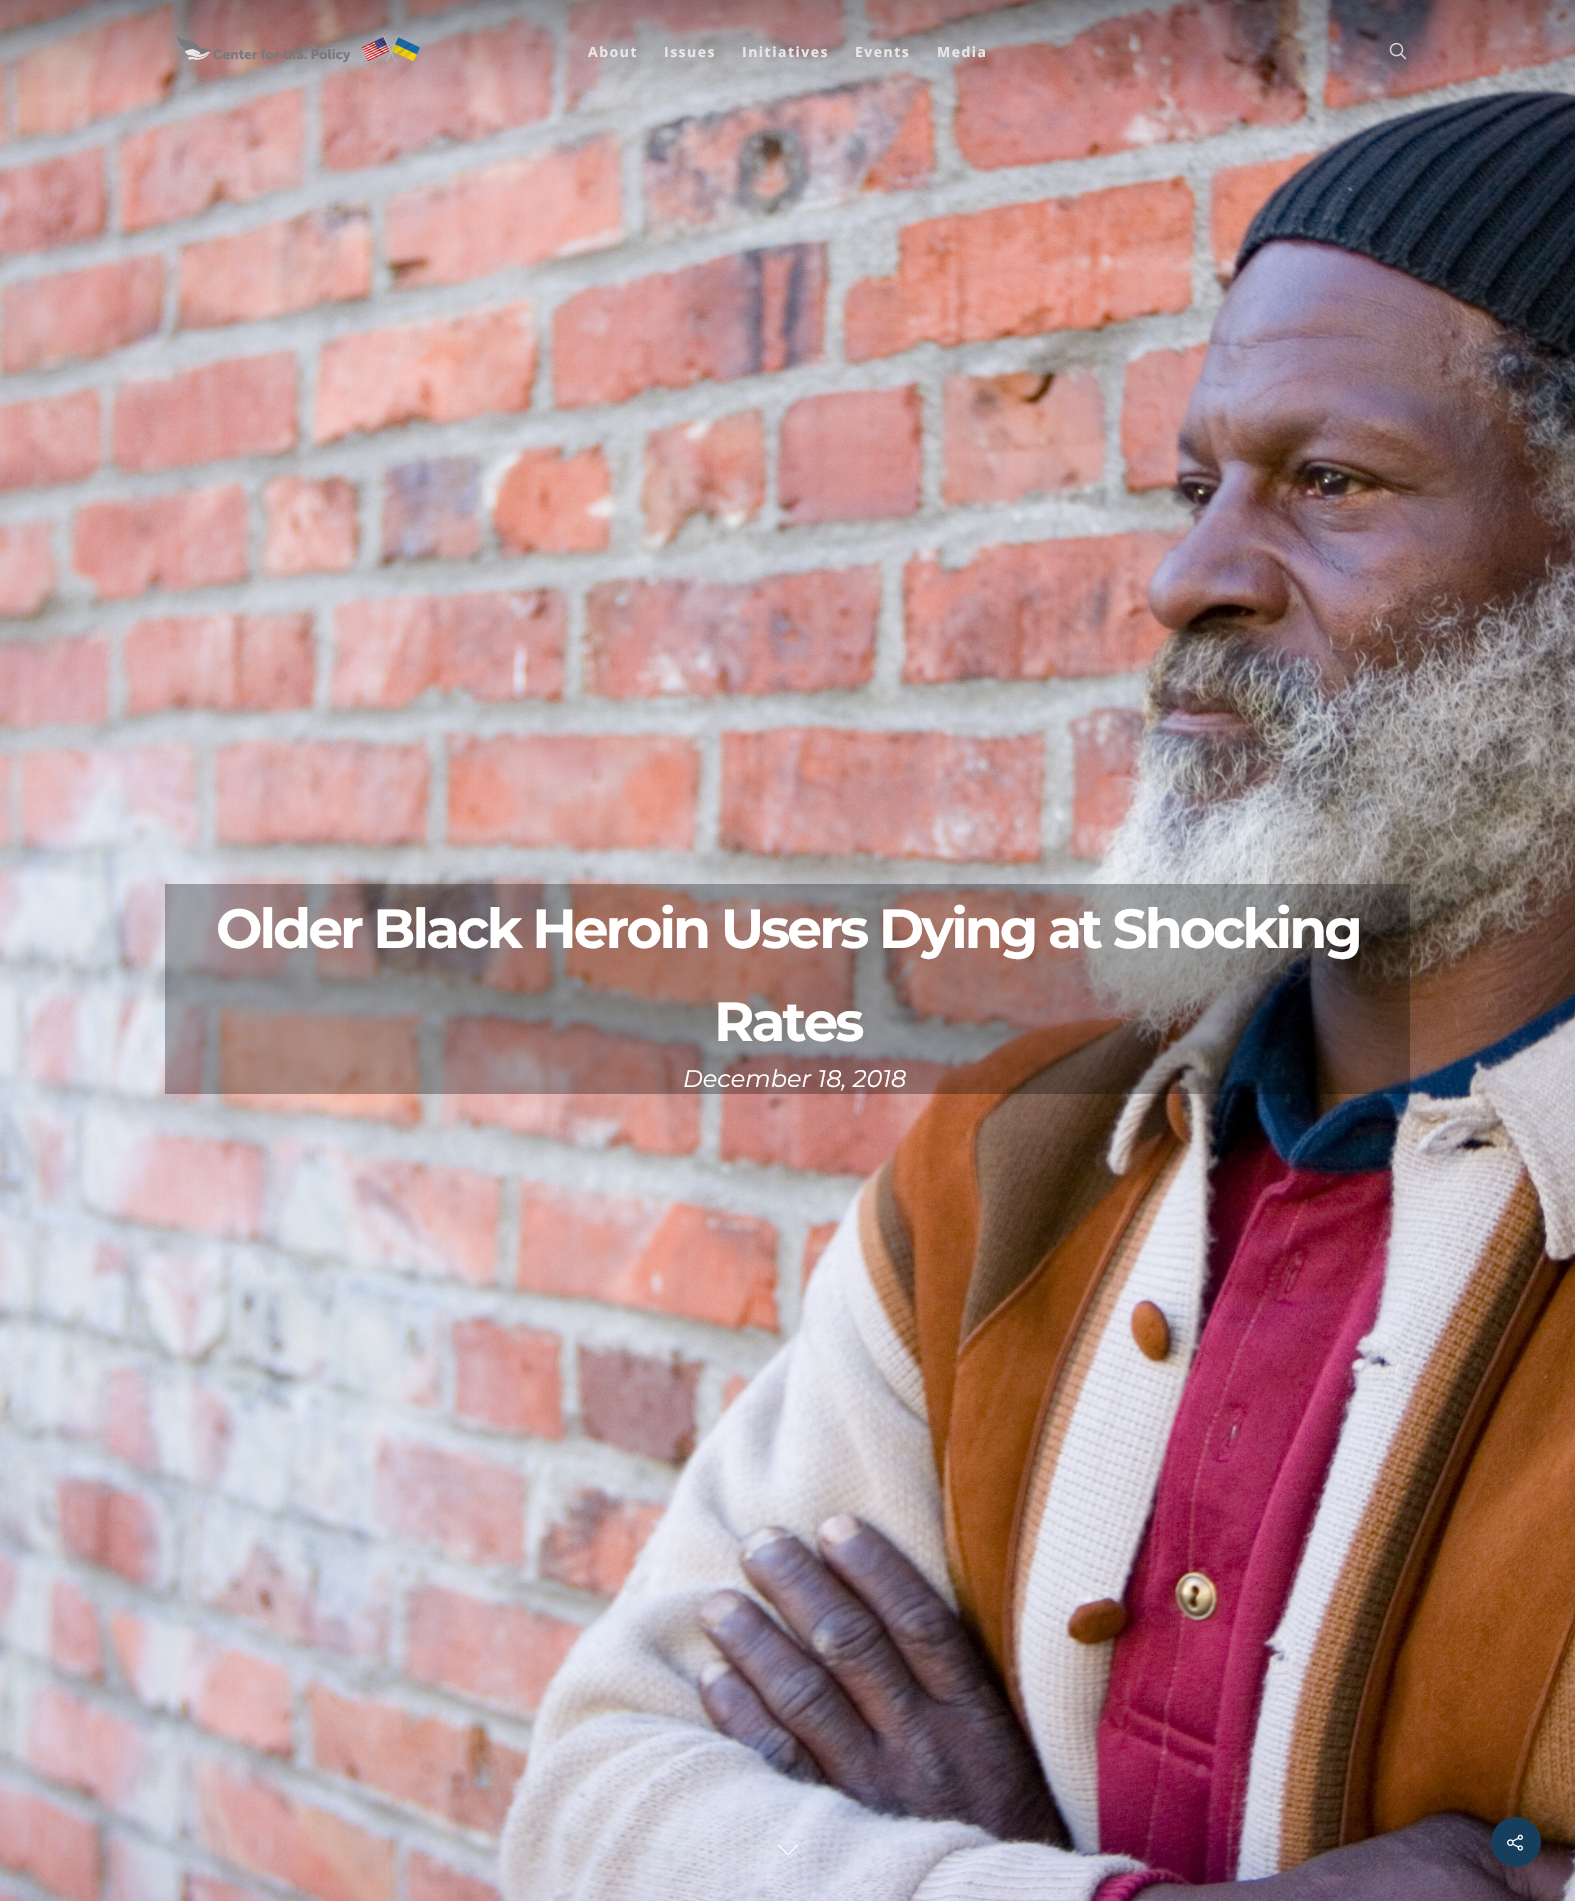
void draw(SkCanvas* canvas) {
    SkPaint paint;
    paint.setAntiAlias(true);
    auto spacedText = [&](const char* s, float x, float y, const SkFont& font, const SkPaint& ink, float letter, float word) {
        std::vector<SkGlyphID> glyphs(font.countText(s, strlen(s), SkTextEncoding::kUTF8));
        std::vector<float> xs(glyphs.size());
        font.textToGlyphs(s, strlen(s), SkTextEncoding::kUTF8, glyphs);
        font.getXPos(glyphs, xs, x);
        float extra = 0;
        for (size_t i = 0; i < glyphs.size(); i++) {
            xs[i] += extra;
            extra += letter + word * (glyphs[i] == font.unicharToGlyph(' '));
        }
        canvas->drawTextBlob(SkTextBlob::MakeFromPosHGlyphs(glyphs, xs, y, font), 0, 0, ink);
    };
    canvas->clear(0xFFFFFFFF);
    canvas->drawImageRect(SkImages::DeferredFromEncodedData(SkData::MakeFromFileName("img3.png")), SkRect::MakeXYWH(0, 0, 1575, 1901), SkSamplingOptions());
    canvas->drawImageRect(SkImages::DeferredFromEncodedData(SkData::MakeFromFileName("img1.png")), SkRect::MakeXYWH(177, 35, 243, 28), SkSamplingOptions());
    SkFont font1(fontMgr->matchFamilyStyle("Open Sans", SkFontStyle::Bold()), 14);
    font1.setSubpixel(true);
    paint.setColor(0xFFEAE7E8);
    spacedText("About", 588, 57, font1, paint, 1.5f, 0);
    spacedText("Issues", 664, 57, font1, paint, 1.5f, 0);
    spacedText("Initiatives", 742, 57, font1, paint, 1.5f, 0);
    spacedText("Events", 855, 57, font1, paint, 1.5f, 0);
    spacedText("Media", 937, 57, font1, paint, 1.5f, 0);
    canvas->drawImageRect(SkImages::DeferredFromEncodedData(SkData::MakeFromFileName("img2.png")), SkRect::MakeXYWH(1389, 42, 18, 18), SkSamplingOptions());
    paint.setColor(0x4D000000);
    canvas->drawRect(SkRect::MakeXYWH(165, 884, 1245, 185), paint);
    SkFont font2(fontMgr->matchFamilyStyle("Montserrat", SkFontStyle::Bold()), 55.1f);
    font2.setSubpixel(true);
    paint.setColor(0xFFFFFFFF);
    spacedText("Older Black Heroin Users Dying at Shocking", 216, 948, font2, paint, -3, 0);
    spacedText("Rates", 714, 1041, font2, paint, -3, 0);
    paint.setColor(0x4D000000);
    canvas->drawRect(SkRect::MakeXYWH(165, 1069, 1245, 25), paint);
    SkFont font3(fontMgr->matchFamilyStyle("Montserrat", SkFontStyle(100, SkFontStyle::kNormal_Width, SkFontStyle::kItalic_Slant)), 24);
    font3.setSubpixel(true);
    paint.setColor(0xFFFFFFFF);
    canvas->drawString("December 18, 2018", 683, 1087, font3, paint);
    canvas->drawPath(SkPathBuilder().moveTo(797, 1844.5f).lineTo(798, 1845.5f).lineTo(788, 1855.5f).lineTo(778, 1845.5f).lineTo(779, 1844.5f).lineTo(788, 1854).close().detach(), paint);
    paint.setColor(0xFF163F5D);
    canvas->drawCircle(1516, 1842, 25, paint);
    canvas->drawImageRect(SkImages::DeferredFromEncodedData(SkData::MakeFromFileName("img4.png")), SkRect::MakeXYWH(1507, 1834, 16, 17), SkSamplingOptions());
}
